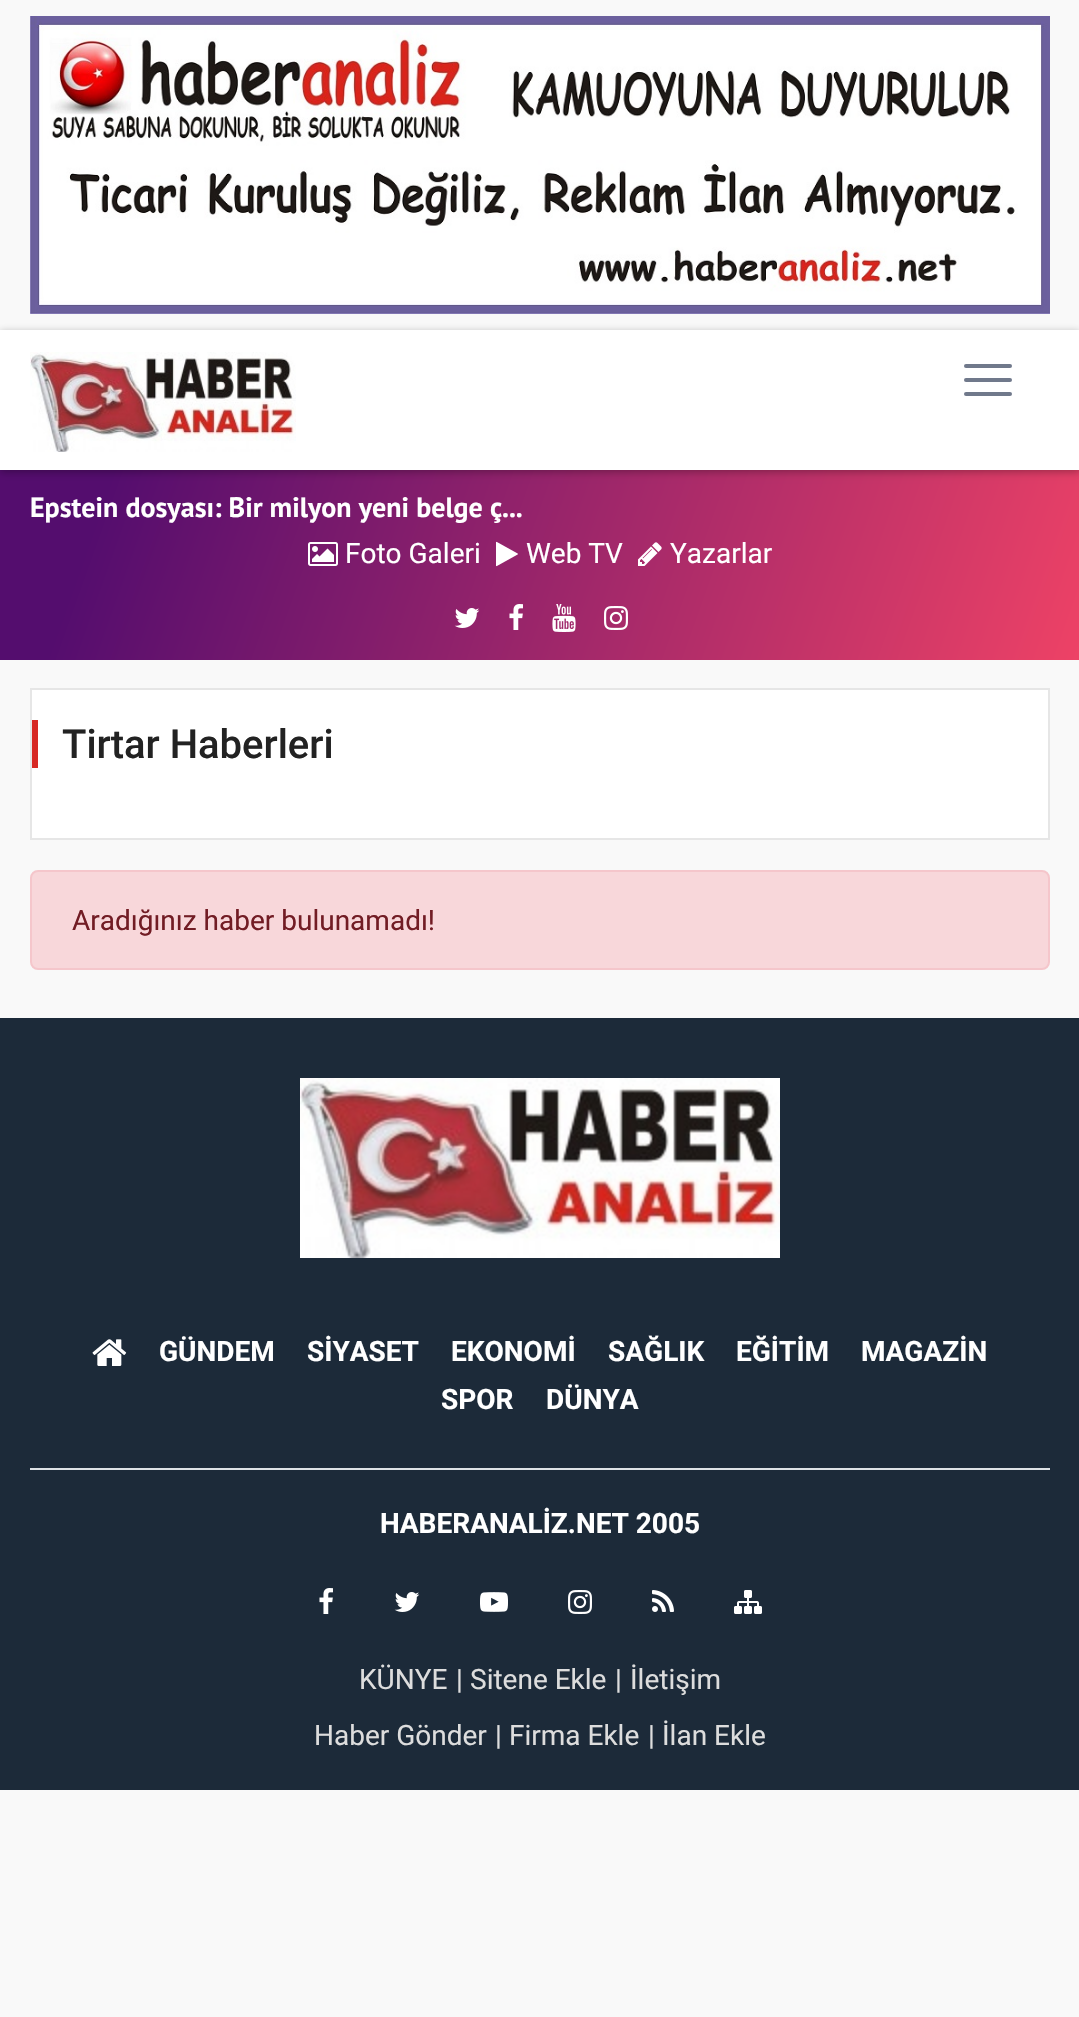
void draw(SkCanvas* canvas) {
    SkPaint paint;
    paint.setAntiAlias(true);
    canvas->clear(0xFFF9F9F9);
    canvas->drawImageRect(SkImages::DeferredFromEncodedData(SkData::MakeFromFileName("img1.png")), SkRect::MakeXYWH(30, 16, 1020, 298), SkSamplingOptions());
    {
        const SkColor colors[] = {0xFF540D6E, 0xFFEE4266};
        const float stops[] = {0.11f, 1};
        const SkPoint ends[] = {{24, 361}, {1058, 729}};
        paint.setShader(SkGradientShader::MakeLinear(ends, colors, stops, 2, SkTileMode::kClamp));
        paint.setAlpha(255);
    }
    canvas->drawRect(SkRect::MakeXYWH(0, 470, 1079, 190), paint);
    paint.setShader(nullptr);
    paint.setColor(0x4D000000);
    paint.setMaskFilter(SkMaskFilter::MakeBlur(kNormal_SkBlurStyle, 4));
    canvas->drawRect(SkRect::MakeXYWH(0, 332, 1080, 140), paint);
    paint.setMaskFilter(nullptr);
    paint.setColor(0xFFFFFFFF);
    canvas->drawRect(SkRect::MakeXYWH(0, 330, 1079, 140), paint);
    canvas->drawImageRect(SkImages::DeferredFromEncodedData(SkData::MakeFromFileName("img2.png")), SkRect::MakeXYWH(30, 352, 266, 100), SkSamplingOptions());
    paint.setColor(0xFF70798B);
    canvas->drawRoundRect(SkRect::MakeXYWH(964, 392, 48, 4), 2, 2, paint);
    canvas->drawRoundRect(SkRect::MakeXYWH(964, 378, 48, 4), 2, 2, paint);
    canvas->drawRoundRect(SkRect::MakeXYWH(964, 364, 48, 4), 2, 2, paint);
    SkFont font1(fontMgr->matchFamilyStyle("PT Sans", SkFontStyle::Bold()), 28);
    font1.setSubpixel(true);
    paint.setColor(0xFFFFFFFF);
    canvas->drawString("Epstein dosyası: Bir milyon yeni belge ç...", 30, 517, font1, paint);
    canvas->drawImageRect(SkImages::DeferredFromEncodedData(SkData::MakeFromFileName("img3.png")), SkRect::MakeXYWH(308, 542, 30, 24), SkSamplingOptions());
    SkFont font2(fontMgr->matchFamilyStyle("Roboto", SkFontStyle::Normal()), 28);
    font2.setSubpixel(true);
    canvas->drawString("Foto Galeri", 345, 563, font2, paint);
    canvas->drawImageRect(SkImages::DeferredFromEncodedData(SkData::MakeFromFileName("img4.png")), SkRect::MakeXYWH(496, 541, 22, 26), SkSamplingOptions());
    canvas->drawString("Web TV", 526, 563, font2, paint);
    canvas->drawImageRect(SkImages::DeferredFromEncodedData(SkData::MakeFromFileName("img5.png")), SkRect::MakeXYWH(638, 542, 24, 24), SkSamplingOptions());
    canvas->drawString("Yazarlar", 670, 563, font2, paint);
    canvas->drawImageRect(SkImages::DeferredFromEncodedData(SkData::MakeFromFileName("img6.png")), SkRect::MakeXYWH(454, 608, 26, 20), SkSamplingOptions());
    canvas->drawImageRect(SkImages::DeferredFromEncodedData(SkData::MakeFromFileName("img7.png")), SkRect::MakeXYWH(509, 604, 14, 26), SkSamplingOptions());
    canvas->drawImageRect(SkImages::DeferredFromEncodedData(SkData::MakeFromFileName("img8.png")), SkRect::MakeXYWH(552, 604, 24, 28), SkSamplingOptions());
    canvas->drawImageRect(SkImages::DeferredFromEncodedData(SkData::MakeFromFileName("img9.png")), SkRect::MakeXYWH(604, 606, 24, 24), SkSamplingOptions());
    canvas->drawRect(SkRect::MakeXYWH(31, 689, 1018, 150), paint);
    paint.setStyle(SkPaint::kStroke_Style);
    paint.setStrokeWidth(2);
    paint.setColor(0xFFE6E6E6);
    canvas->drawRect(SkRect::MakeXYWH(31, 689, 1018, 150), paint);
    paint.setStyle(SkPaint::kFill_Style);
    paint.setColor(0xFFD72924);
    canvas->drawRect(SkRect::MakeXYWH(32, 720, 6, 48), paint);
    SkFont font3(fontMgr->matchFamilyStyle("Roboto", SkFontStyle(500, SkFontStyle::kNormal_Width, SkFontStyle::kUpright_Slant)), 40);
    font3.setSubpixel(true);
    paint.setColor(0xFF222222);
    canvas->drawString("Tirtar Haberleri", 62, 758, font3, paint);
    paint.setColor(0xFFF8D7DA);
    canvas->drawRoundRect(SkRect::MakeXYWH(31, 871, 1018, 98), 7, 7, paint);
    paint.setStyle(SkPaint::kStroke_Style);
    paint.setColor(0xFFF5C6CB);
    canvas->drawRoundRect(SkRect::MakeXYWH(31, 871, 1018, 98), 7, 7, paint);
    paint.setStyle(SkPaint::kFill_Style);
    paint.setColor(0xFF721C24);
    canvas->drawString("Aradığınız haber bulunamadı!", 72, 930, font2, paint);
    paint.setColor(0xFF1C2A39);
    canvas->drawRect(SkRect::MakeXYWH(0, 1018, 1079, 772), paint);
    canvas->drawImageRect(SkImages::DeferredFromEncodedData(SkData::MakeFromFileName("img10.png")), SkRect::MakeXYWH(300, 1078, 480, 180), SkSamplingOptions());
    canvas->drawImageRect(SkImages::DeferredFromEncodedData(SkData::MakeFromFileName("img11.png")), SkRect::MakeXYWH(92, 1339, 35, 27), SkSamplingOptions());
    SkFont font4(fontMgr->matchFamilyStyle("Roboto", SkFontStyle::Bold()), 28);
    font4.setSubpixel(true);
    paint.setColor(0xFFFFFFFF);
    canvas->drawString("GÜNDEM", 159, 1361, font4, paint);
    canvas->drawString("SİYASET", 307, 1361, font4, paint);
    canvas->drawString("EKONOMİ", 451, 1361, font4, paint);
    canvas->drawString("SAĞLIK", 608, 1361, font4, paint);
    canvas->drawString("EĞİTİM", 736, 1361, font4, paint);
    canvas->drawString("MAGAZİN", 861, 1361, font4, paint);
    canvas->drawString("SPOR", 441, 1409, font4, paint);
    canvas->drawString("DÜNYA", 546, 1409, font4, paint);
    paint.setColor(0xFFDEE2E6);
    canvas->drawRect(SkRect::MakeXYWH(30, 1468, 1020, 2), paint);
    paint.setColor(0xFFFFFFFF);
    canvas->drawString("HABERANALİZ.NET 2005", 380, 1533, font4, paint);
    canvas->drawImageRect(SkImages::DeferredFromEncodedData(SkData::MakeFromFileName("img12.png")), SkRect::MakeXYWH(319, 1588, 14, 26), SkSamplingOptions());
    canvas->drawImageRect(SkImages::DeferredFromEncodedData(SkData::MakeFromFileName("img13.png")), SkRect::MakeXYWH(394, 1592, 26, 20), SkSamplingOptions());
    canvas->drawImageRect(SkImages::DeferredFromEncodedData(SkData::MakeFromFileName("img14.png")), SkRect::MakeXYWH(480, 1592, 28, 20), SkSamplingOptions());
    canvas->drawImageRect(SkImages::DeferredFromEncodedData(SkData::MakeFromFileName("img15.png")), SkRect::MakeXYWH(568, 1590, 24, 24), SkSamplingOptions());
    canvas->drawImageRect(SkImages::DeferredFromEncodedData(SkData::MakeFromFileName("img16.png")), SkRect::MakeXYWH(652, 1590, 22, 22), SkSamplingOptions());
    canvas->drawImageRect(SkImages::DeferredFromEncodedData(SkData::MakeFromFileName("img17.png")), SkRect::MakeXYWH(734, 1590, 28, 24), SkSamplingOptions());
    paint.setColor(0xFFDDDDDD);
    canvas->drawString("KÜNYE", 359, 1689, font2, paint);
    canvas->drawString("|", 456, 1689, font2, paint);
    canvas->drawString("Sitene Ekle", 470, 1689, font2, paint);
    canvas->drawString("|", 615, 1689, font2, paint);
    canvas->drawString("İletişim", 630, 1689, font2, paint);
    canvas->drawString("Haber Gönder", 314, 1745, font2, paint);
    canvas->drawString("|", 495, 1745, font2, paint);
    canvas->drawString("Firma Ekle", 509, 1745, font2, paint);
    canvas->drawString("|", 648, 1745, font2, paint);
    canvas->drawString("İlan Ekle", 662, 1745, font2, paint);
}
